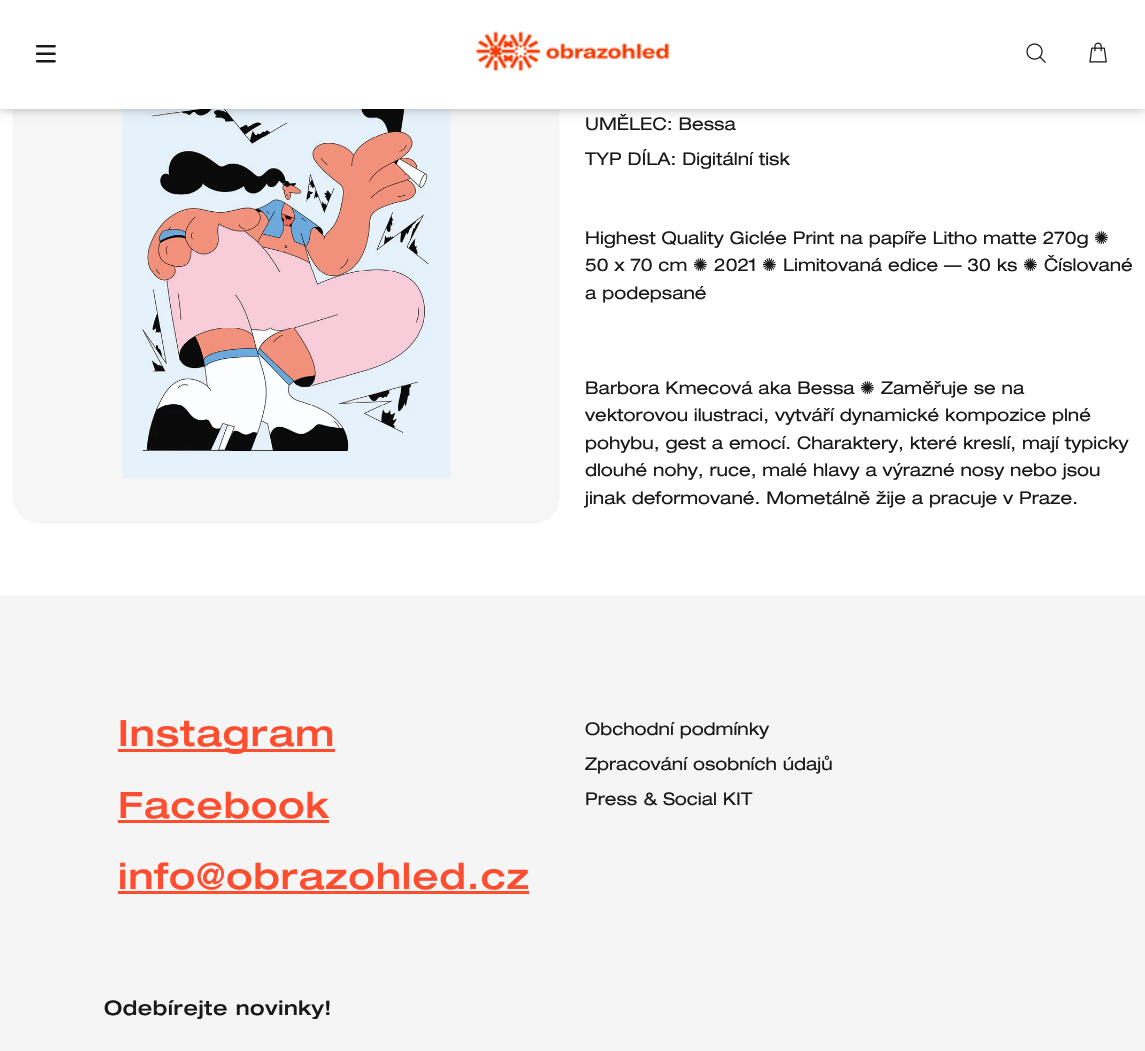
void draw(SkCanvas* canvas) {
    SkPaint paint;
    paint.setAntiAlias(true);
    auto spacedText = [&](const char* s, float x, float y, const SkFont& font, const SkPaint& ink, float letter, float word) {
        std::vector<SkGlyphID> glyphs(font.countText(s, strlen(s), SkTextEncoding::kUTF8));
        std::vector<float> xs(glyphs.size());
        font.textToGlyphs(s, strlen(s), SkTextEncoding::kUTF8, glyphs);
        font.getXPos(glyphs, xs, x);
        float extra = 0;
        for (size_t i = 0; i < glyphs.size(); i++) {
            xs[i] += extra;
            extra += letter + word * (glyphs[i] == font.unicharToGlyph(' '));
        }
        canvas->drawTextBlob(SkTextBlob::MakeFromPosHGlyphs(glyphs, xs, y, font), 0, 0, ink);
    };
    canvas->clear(0xFFFFFFFF);
    canvas->drawImageRect(SkImages::DeferredFromEncodedData(SkData::MakeFromFileName("img5.png")), SkRect::MakeXYWH(13, 109, 547, 415), SkSamplingOptions());
    paint.setColor(0x4D000000);
    paint.setMaskFilter(SkMaskFilter::MakeBlur(kNormal_SkBlurStyle, 5));
    canvas->drawRect(SkRect::MakeXYWH(0, 0, 1145, 109), paint);
    paint.setMaskFilter(nullptr);
    paint.setColor(0xFFFFFFFF);
    canvas->drawRect(SkRect::MakeXYWH(0, 0, 1145, 109), paint);
    canvas->drawImageRect(SkImages::DeferredFromEncodedData(SkData::MakeFromFileName("img1.png")), SkRect::MakeXYWH(35, 45, 21, 18), SkSamplingOptions());
    canvas->drawImageRect(SkImages::DeferredFromEncodedData(SkData::MakeFromFileName("img2.png")), SkRect::MakeXYWH(476, 31, 193, 41), SkSamplingOptions());
    canvas->drawImageRect(SkImages::DeferredFromEncodedData(SkData::MakeFromFileName("img3.png")), SkRect::MakeXYWH(1026, 43, 20, 20), SkSamplingOptions());
    canvas->drawImageRect(SkImages::DeferredFromEncodedData(SkData::MakeFromFileName("img4.png")), SkRect::MakeXYWH(1089, 42, 18, 21), SkSamplingOptions());
    SkFont font1(fontMgr->matchFamilyStyle("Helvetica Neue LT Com", SkFontStyle::Normal()), 17.5f);
    font1.setSubpixel(true);
    paint.setColor(0xFF191919);
    canvas->drawString("UMĚLEC: Bessa", 585, 130, font1, paint);
    canvas->drawString("TYP DÍLA: Digitální tisk", 585, 165, font1, paint);
    canvas->drawString("Highest Quality Giclée Print na papíře Litho matte 270g", 585, 244, font1, paint);
    SkFont font2(fontMgr->matchFamilyStyle("DejaVu Sans", SkFontStyle::Normal()), 17.5f);
    font2.setSubpixel(true);
    canvas->drawString("✺", 1094, 244, font2, paint);
    canvas->drawString("50 x 70 cm", 585, 271, font1, paint);
    canvas->drawString("✺", 693, 271, font2, paint);
    canvas->drawString("2021", 714, 271, font1, paint);
    canvas->drawString("✺", 762, 271, font2, paint);
    canvas->drawString("Limitovaná edice — 30 ks", 783, 271, font1, paint);
    canvas->drawString("✺", 1023, 271, font2, paint);
    canvas->drawString("Číslované", 1044, 271, font1, paint);
    canvas->drawString("a podepsané", 585, 299, font1, paint);
    canvas->drawString("Barbora Kmecová aka Bessa", 585, 394, font1, paint);
    canvas->drawString("✺", 860, 394, font2, paint);
    canvas->drawString("Zaměřuje se na", 881, 394, font1, paint);
    canvas->drawString("vektorovou ilustraci, vytváří dynamické kompozice plné", 585, 421, font1, paint);
    canvas->drawString("pohybu, gest a emocí. Charaktery, které kreslí, mají typicky", 585, 449, font1, paint);
    canvas->drawString("dlouhé nohy, ruce, malé hlavy a výrazné nosy nebo jsou", 585, 476, font1, paint);
    canvas->drawString("jinak deformované. Mometálně žije a pracuje v Praze.", 585, 504, font1, paint);
    paint.setColor(0xFFF5F5F5);
    canvas->drawRect(SkRect::MakeXYWH(0, 596, 1145, 455), paint);
    paint.setColor(0xFFF7F8FA);
    canvas->drawRect(SkRect::MakeXYWH(0, 595, 1145, 1), paint);
    paint.setColor(0xFFFF4D30);
    canvas->drawRect(SkRect::MakeXYWH(118, 749, 217, 3), paint);
    SkFont font3(fontMgr->matchFamilyStyle("Helvetica Neue LT Com", SkFontStyle(500, SkFontStyle::kNormal_Width, SkFontStyle::kUpright_Slant)), 36.25f);
    font3.setSubpixel(true);
    spacedText("Instagram", 118, 746, font3, paint, 1.1f, 0);
    spacedText("Facebook", 118, 818, font3, paint, 1.1f, 0);
    canvas->drawRect(SkRect::MakeXYWH(118, 820, 211, 3), paint);
    spacedText("info@obrazohled.cz", 118, 889, font3, paint, 1.1f, 0);
    canvas->drawRect(SkRect::MakeXYWH(118, 891, 411, 3), paint);
    paint.setColor(0xFF191919);
    canvas->drawString("Obchodní podmínky", 585, 735, font1, paint);
    canvas->drawString("Zpracování osobních údajů", 585, 770, font1, paint);
    canvas->drawString("Press & Social KIT", 585, 805, font1, paint);
    SkFont font4(fontMgr->matchFamilyStyle("Helvetica Neue LT Com", SkFontStyle(500, SkFontStyle::kNormal_Width, SkFontStyle::kUpright_Slant)), 20);
    font4.setSubpixel(true);
    spacedText("Odebírejte novinky!", 104, 1015, font4, paint, 0.6f, 0);
}
